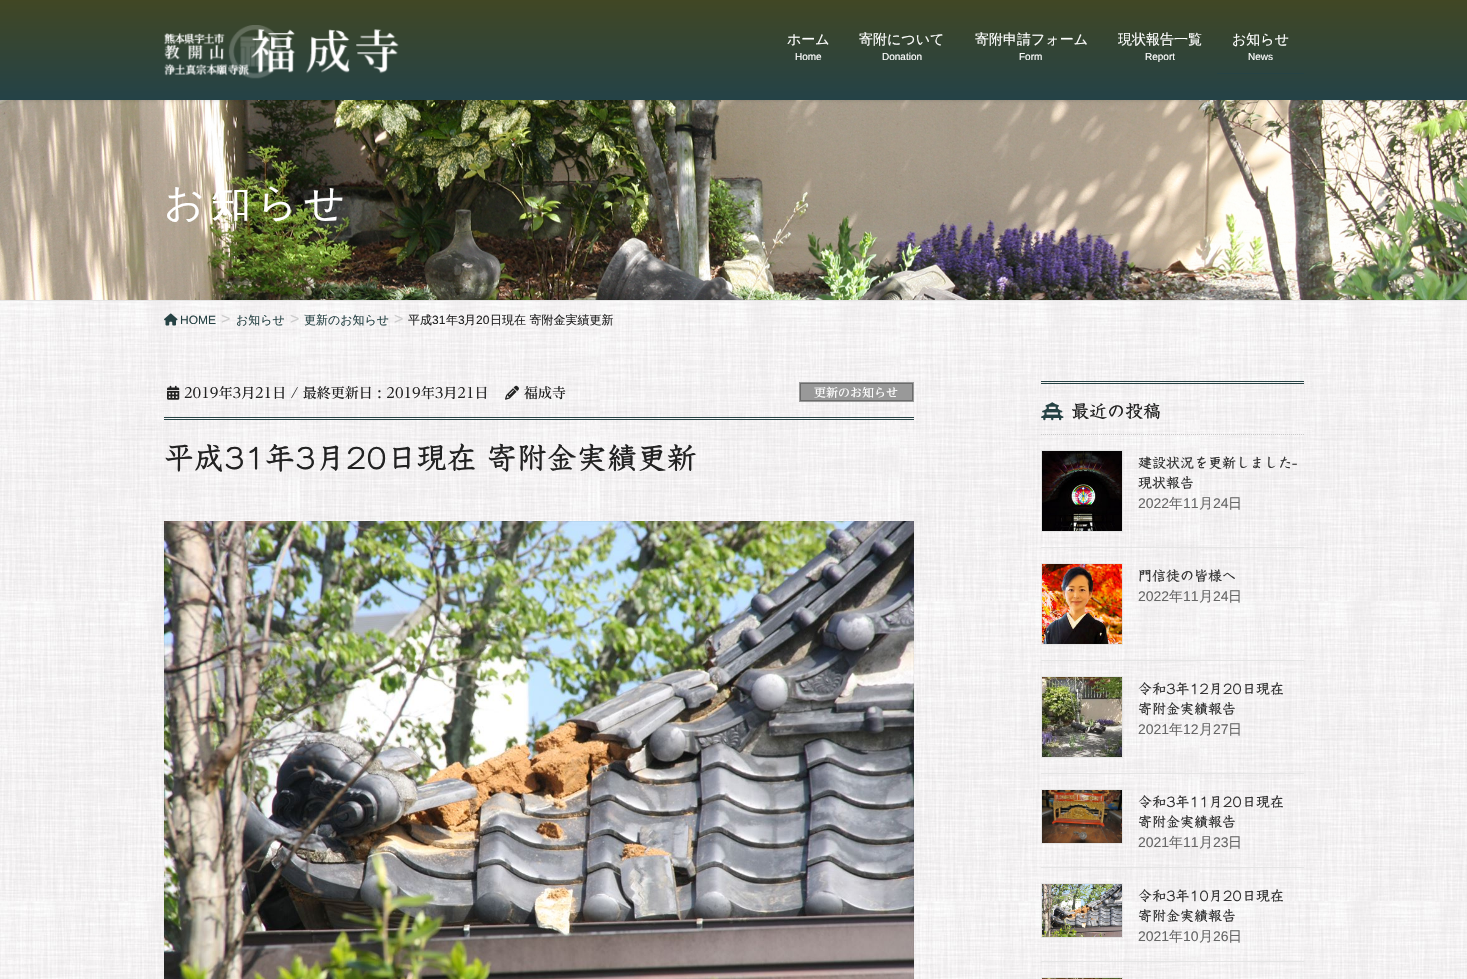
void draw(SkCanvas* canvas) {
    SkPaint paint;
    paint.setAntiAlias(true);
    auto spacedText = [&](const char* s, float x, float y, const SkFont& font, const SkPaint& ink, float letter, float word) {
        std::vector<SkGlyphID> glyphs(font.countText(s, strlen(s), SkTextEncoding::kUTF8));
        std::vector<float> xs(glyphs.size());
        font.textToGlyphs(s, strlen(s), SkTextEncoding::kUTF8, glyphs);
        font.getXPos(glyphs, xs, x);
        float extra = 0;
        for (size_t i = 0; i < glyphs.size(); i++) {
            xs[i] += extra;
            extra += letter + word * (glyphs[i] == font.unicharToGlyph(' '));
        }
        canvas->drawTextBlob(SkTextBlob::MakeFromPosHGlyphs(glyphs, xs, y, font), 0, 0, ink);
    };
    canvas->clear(0xFFFFFFFF);
    canvas->drawImageRect(SkImages::DeferredFromEncodedData(SkData::MakeFromFileName("img2.png")), SkRect::MakeXYWH(0, 100, 1467, 200), SkSamplingOptions());
    paint.setColor(0x1A000000);
    paint.setMaskFilter(SkMaskFilter::MakeBlur(kNormal_SkBlurStyle, 1.5f));
    canvas->drawRect(SkRect::MakeXYWH(0, 1, 1467, 100), paint);
    paint.setMaskFilter(nullptr);
    {
        const SkColor colors[] = {0xFF414724, 0xFF244247};
        const float stops[] = {0, 1};
        const SkPoint ends[] = {{734, 0}, {734, 100}};
        paint.setShader(SkGradientShader::MakeLinear(ends, colors, stops, 2, SkTileMode::kClamp));
        paint.setAlpha(255);
    }
    canvas->drawRect(SkRect::MakeXYWH(0, 0, 1467, 100), paint);
    canvas->drawImageRect(SkImages::DeferredFromEncodedData(SkData::MakeFromFileName("img1.png")), SkRect::MakeXYWH(164, 25, 235, 54), SkSamplingOptions());
    SkFont font1(fontMgr->matchFamilyStyle("WenQuanYi Zen Hei", SkFontStyle(500, SkFontStyle::kNormal_Width, SkFontStyle::kUpright_Slant)), 14);
    font1.setSubpixel(true);
    paint.setShader(nullptr);
    paint.setColor(0xFFFFFFFF);
    canvas->drawString("ホーム", 787, 44, font1, paint);
    SkFont font2(fontMgr->matchFamilyStyle("Liberation Sans", SkFontStyle::Normal()), 10);
    font2.setSubpixel(true);
    canvas->drawString("Home", 795, 60, font2, paint);
    canvas->drawString("寄附について", 859, 44, font1, paint);
    canvas->drawString("Donation", 882, 60, font2, paint);
    canvas->drawString("寄附申請フォーム", 975, 44, font1, paint);
    canvas->drawString("Form", 1019, 60, font2, paint);
    canvas->drawString("現状報告一覧", 1118, 44, font1, paint);
    canvas->drawString("Report", 1145, 60, font2, paint);
    canvas->drawString("お知らせ", 1232, 44, font1, paint);
    canvas->drawString("News", 1248, 60, font2, paint);
    paint.setColor(0xFF264244);
    canvas->drawRect(SkRect::MakeXYWH(1217, 73, 87, 1), paint);
    SkFont font3(fontMgr->matchFamilyStyle("WenQuanYi Zen Hei", SkFontStyle(500, SkFontStyle::kNormal_Width, SkFontStyle::kUpright_Slant)), 40);
    font3.setSubpixel(true);
    paint.setColor(0xFFFFFFFF);
    spacedText("お知らせ", 164, 216, font3, paint, 6, 0);
    paint.setColor(0xFFE5E5E5);
    canvas->drawRect(SkRect::MakeXYWH(0, 300, 1467, 1), paint);
    canvas->drawImageRect(SkImages::DeferredFromEncodedData(SkData::MakeFromFileName("img4.png")), SkRect::MakeXYWH(0, 301, 1467, 678), SkSamplingOptions());
    canvas->drawImageRect(SkImages::DeferredFromEncodedData(SkData::MakeFromFileName("img3.png")), SkRect::MakeXYWH(164, 313, 14, 13), SkSamplingOptions());
    SkFont font4(fontMgr->matchFamilyStyle("Liberation Sans", SkFontStyle::Normal()), 12);
    font4.setSubpixel(true);
    paint.setColor(0xFF264244);
    canvas->drawString("HOME", 180, 324, font4, paint);
    SkFont font5(fontMgr->matchFamilyStyle("Liberation Sans", SkFontStyle::Normal()), 16);
    font5.setSubpixel(true);
    paint.setColor(0xFFCCCCCC);
    canvas->drawString(">", 221, 324, font5, paint);
    SkFont font6(fontMgr->matchFamilyStyle("WenQuanYi Zen Hei", SkFontStyle(500, SkFontStyle::kNormal_Width, SkFontStyle::kUpright_Slant)), 12);
    font6.setSubpixel(true);
    paint.setColor(0xFF264244);
    canvas->drawString("お知らせ", 236, 324, font6, paint);
    paint.setColor(0xFFCCCCCC);
    canvas->drawString(">", 290, 324, font5, paint);
    paint.setColor(0xFF264244);
    canvas->drawString("更新のお知らせ", 304, 324, font6, paint);
    paint.setColor(0xFFCCCCCC);
    canvas->drawString(">", 394, 324, font5, paint);
    paint.setColor(0xFF222222);
    canvas->drawString("平成", 408, 324, font6, paint);
    canvas->drawString("31", 432, 324, font4, paint);
    canvas->drawString("年", 446, 324, font6, paint);
    canvas->drawString("3", 458, 324, font4, paint);
    canvas->drawString("月", 464, 324, font6, paint);
    canvas->drawString("20", 476, 324, font4, paint);
    canvas->drawString("日現在 寄附金実績更新", 490, 324, font6, paint);
    canvas->drawImageRect(SkImages::DeferredFromEncodedData(SkData::MakeFromFileName("img5.png")), SkRect::MakeXYWH(167, 385, 13, 15), SkSamplingOptions());
    SkFont font7(fontMgr->matchFamilyStyle("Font", SkFontStyle::Normal()), 14);
    font7.setSubpixel(true);
    canvas->drawString("2019年3月21日", 184, 398, font7, paint);
    canvas->drawString("/ 最終更新日 : 2019年3月21日", 291, 398, font7, paint);
    canvas->drawImageRect(SkImages::DeferredFromEncodedData(SkData::MakeFromFileName("img6.png")), SkRect::MakeXYWH(505, 385, 14, 15), SkSamplingOptions());
    canvas->drawString("福成寺", 524, 398, font7, paint);
    paint.setColor(0xFF999999);
    canvas->drawRect(SkRect::MakeXYWH(799, 382, 115, 20), paint);
    paint.setStyle(SkPaint::kStroke_Style);
    paint.setStrokeWidth(1);
    paint.setColor(0xFF6B6B6B);
    canvas->drawRect(SkRect::MakeXYWH(800.5f, 383.5f, 112, 17), paint);
    SkFont font8(fontMgr->matchFamilyStyle("Font", SkFontStyle::Normal()), 12);
    font8.setSubpixel(true);
    paint.setStyle(SkPaint::kFill_Style);
    paint.setColor(0xFFFFFFFF);
    canvas->drawString("更新のお知らせ", 814, 397, font8, paint);
    paint.setColor(0xFF264244);
    canvas->drawRect(SkRect::MakeXYWH(164, 417, 750, 1), paint);
    canvas->drawRect(SkRect::MakeXYWH(164, 419, 750, 1), paint);
    SkFont font9(fontMgr->matchFamilyStyle("Font", SkFontStyle(500, SkFontStyle::kNormal_Width, SkFontStyle::kUpright_Slant)), 30);
    font9.setSubpixel(true);
    paint.setColor(0xFF222222);
    canvas->drawString("平成31年3月20日現在 寄附金実績更新", 164, 469, font9, paint);
    canvas->drawImageRect(SkImages::DeferredFromEncodedData(SkData::MakeFromFileName("img7.png")), SkRect::MakeXYWH(164, 521, 750, 458), SkSamplingOptions());
    paint.setColor(0xFF264244);
    canvas->drawRect(SkRect::MakeXYWH(1041, 381, 263, 1), paint);
    canvas->drawRect(SkRect::MakeXYWH(1041, 383, 263, 1), paint);
    paint.setStyle(SkPaint::kStroke_Style);
    paint.setColor(0xFFCCCCCC);
    paint.setPathEffect(SkDashPathEffect::Make({{1, 1}}, 0));
    canvas->drawPath(SkPathBuilder().moveTo(1041, 434.5f).lineTo(1304, 434.5f).detach(), paint);
    paint.setPathEffect(nullptr);
    canvas->drawImageRect(SkImages::DeferredFromEncodedData(SkData::MakeFromFileName("img8.png")), SkRect::MakeXYWH(1041, 402, 23, 19), SkSamplingOptions());
    SkFont font10(fontMgr->matchFamilyStyle("Font", SkFontStyle(500, SkFontStyle::kNormal_Width, SkFontStyle::kUpright_Slant)), 18);
    font10.setSubpixel(true);
    paint.setStyle(SkPaint::kFill_Style);
    paint.setColor(0xFF222222);
    canvas->drawString("最近の投稿", 1071, 418, font10, paint);
    paint.setColor(0xFFE5E5E5);
    canvas->drawRect(SkRect::MakeXYWH(1041, 547, 263, 1), paint);
    paint.setStyle(SkPaint::kStroke_Style);
    canvas->drawRect(SkRect::MakeXYWH(1041.5f, 450.5f, 81, 81), paint);
    canvas->drawImageRect(SkImages::DeferredFromEncodedData(SkData::MakeFromFileName("img9.png")), SkRect::MakeXYWH(1042, 451, 80, 80), SkSamplingOptions());
    SkFont font11(fontMgr->matchFamilyStyle("Font", SkFontStyle(500, SkFontStyle::kNormal_Width, SkFontStyle::kUpright_Slant)), 14);
    font11.setSubpixel(true);
    paint.setStyle(SkPaint::kFill_Style);
    paint.setColor(0xFF333333);
    canvas->drawString("建設状況を更新しました-", 1138, 468, font11, paint);
    canvas->drawString("現状報告", 1138, 488, font11, paint);
    SkFont font12(fontMgr->matchFamilyStyle("Liberation Sans", SkFontStyle::Normal()), 14);
    font12.setSubpixel(true);
    paint.setColor(0xFF666666);
    canvas->drawString("2022", 1138, 508, font12, paint);
    canvas->drawString("年", 1169, 508, font1, paint);
    canvas->drawString("11", 1183, 508, font12, paint);
    canvas->drawString("月", 1199, 508, font1, paint);
    canvas->drawString("24", 1213, 508, font12, paint);
    canvas->drawString("日", 1228, 508, font1, paint);
    paint.setColor(0xFFE5E5E5);
    canvas->drawRect(SkRect::MakeXYWH(1041, 660, 263, 1), paint);
    paint.setStyle(SkPaint::kStroke_Style);
    canvas->drawRect(SkRect::MakeXYWH(1041.5f, 563.5f, 81, 81), paint);
    canvas->drawImageRect(SkImages::DeferredFromEncodedData(SkData::MakeFromFileName("img10.png")), SkRect::MakeXYWH(1042, 564, 80, 80), SkSamplingOptions());
    paint.setStyle(SkPaint::kFill_Style);
    paint.setColor(0xFF333333);
    canvas->drawString("門信徒の皆様へ", 1138, 581, font11, paint);
    paint.setColor(0xFF666666);
    canvas->drawString("2022", 1138, 601, font12, paint);
    canvas->drawString("年", 1169, 601, font1, paint);
    canvas->drawString("11", 1183, 601, font12, paint);
    canvas->drawString("月", 1199, 601, font1, paint);
    canvas->drawString("24", 1213, 601, font12, paint);
    canvas->drawString("日", 1228, 601, font1, paint);
    paint.setColor(0xFFE5E5E5);
    canvas->drawRect(SkRect::MakeXYWH(1041, 773, 263, 1), paint);
    paint.setStyle(SkPaint::kStroke_Style);
    canvas->drawRect(SkRect::MakeXYWH(1041.5f, 676.5f, 81, 81), paint);
    canvas->drawImageRect(SkImages::DeferredFromEncodedData(SkData::MakeFromFileName("img11.png")), SkRect::MakeXYWH(1042, 677, 80, 80), SkSamplingOptions());
    paint.setStyle(SkPaint::kFill_Style);
    paint.setColor(0xFF333333);
    canvas->drawString("令和3年12月20日現在", 1138, 694, font11, paint);
    canvas->drawString("寄附金実績報告", 1138, 714, font11, paint);
    paint.setColor(0xFF666666);
    canvas->drawString("2021", 1138, 734, font12, paint);
    canvas->drawString("年", 1169, 734, font1, paint);
    canvas->drawString("12", 1183, 734, font12, paint);
    canvas->drawString("月", 1199, 734, font1, paint);
    canvas->drawString("27", 1213, 734, font12, paint);
    canvas->drawString("日", 1228, 734, font1, paint);
    paint.setColor(0xFFE5E5E5);
    canvas->drawRect(SkRect::MakeXYWH(1041, 867, 263, 1), paint);
    paint.setStyle(SkPaint::kStroke_Style);
    canvas->drawRect(SkRect::MakeXYWH(1041.5f, 789.5f, 81, 54), paint);
    canvas->drawImageRect(SkImages::DeferredFromEncodedData(SkData::MakeFromFileName("img12.png")), SkRect::MakeXYWH(1042, 790, 80, 53), SkSamplingOptions());
    paint.setStyle(SkPaint::kFill_Style);
    paint.setColor(0xFF333333);
    canvas->drawString("令和3年11月20日現在", 1138, 807, font11, paint);
    canvas->drawString("寄附金実績報告", 1138, 827, font11, paint);
    paint.setColor(0xFF666666);
    canvas->drawString("2021", 1138, 847, font12, paint);
    canvas->drawString("年", 1169, 847, font1, paint);
    canvas->drawString("11", 1183, 847, font12, paint);
    canvas->drawString("月", 1199, 847, font1, paint);
    canvas->drawString("23", 1213, 847, font12, paint);
    canvas->drawString("日", 1228, 847, font1, paint);
    paint.setColor(0xFFE5E5E5);
    canvas->drawRect(SkRect::MakeXYWH(1041, 961, 263, 1), paint);
    paint.setStyle(SkPaint::kStroke_Style);
    canvas->drawRect(SkRect::MakeXYWH(1041.5f, 883.5f, 81, 54), paint);
    canvas->drawImageRect(SkImages::DeferredFromEncodedData(SkData::MakeFromFileName("img13.png")), SkRect::MakeXYWH(1042, 884, 80, 53), SkSamplingOptions());
    paint.setStyle(SkPaint::kFill_Style);
    paint.setColor(0xFF333333);
    canvas->drawString("令和3年10月20日現在", 1138, 901, font11, paint);
    canvas->drawString("寄附金実績報告", 1138, 921, font11, paint);
    paint.setColor(0xFF666666);
    canvas->drawString("2021", 1138, 941, font12, paint);
    canvas->drawString("年", 1169, 941, font1, paint);
    canvas->drawString("10", 1183, 941, font12, paint);
    canvas->drawString("月", 1199, 941, font1, paint);
    canvas->drawString("26", 1213, 941, font12, paint);
    canvas->drawString("日", 1228, 941, font1, paint);
    paint.setStyle(SkPaint::kStroke_Style);
    paint.setColor(0xFFE5E5E5);
    canvas->drawRect(SkRect::MakeXYWH(1041.5f, 977.5f, 81, 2), paint);
    canvas->drawImageRect(SkImages::DeferredFromEncodedData(SkData::MakeFromFileName("img14.png")), SkRect::MakeXYWH(1042, 978, 80, 1), SkSamplingOptions());
}
